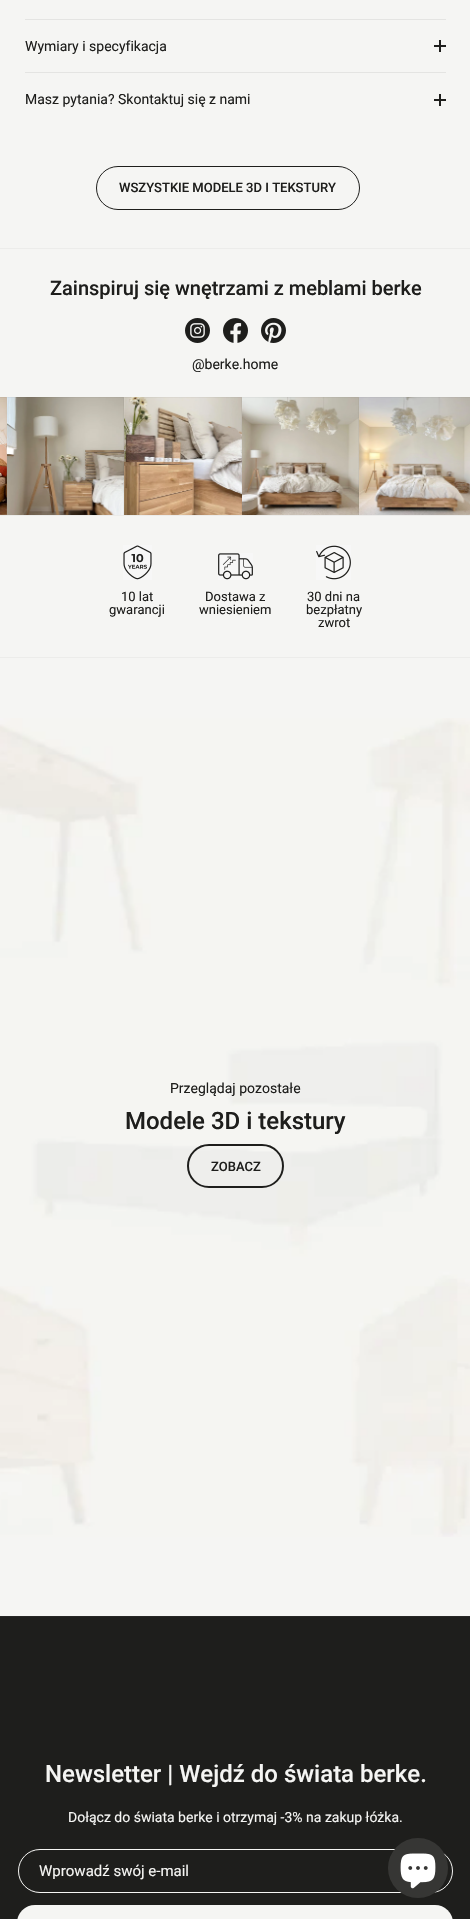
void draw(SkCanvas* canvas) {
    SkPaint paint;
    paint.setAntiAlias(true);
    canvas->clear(0xFFF5F5F3);
    paint.setColor(0xFFE4E4E2);
    canvas->drawRect(SkRect::MakeXYWH(25, 19, 421, 1), paint);
    SkFont font1(fontMgr->matchFamilyStyle("Roboto", SkFontStyle::Normal()), 14);
    font1.setSubpixel(true);
    paint.setColor(0xFF1E1E1C);
    canvas->drawString("Wymiary i specyfikacja", 25, 51, font1, paint);
    canvas->drawRect(SkRect::MakeXYWH(439, 40, 2, 12), paint);
    canvas->drawRect(SkRect::MakeXYWH(434, 45, 12, 2), paint);
    paint.setColor(0xFFE4E4E2);
    canvas->drawRect(SkRect::MakeXYWH(25, 72, 421, 1), paint);
    paint.setColor(0xFF1E1E1C);
    canvas->drawString("Masz pytania? Skontaktuj się z nami", 25, 104, font1, paint);
    canvas->drawRect(SkRect::MakeXYWH(439, 94, 2, 12), paint);
    canvas->drawRect(SkRect::MakeXYWH(434, 99, 12, 2), paint);
    paint.setStyle(SkPaint::kStroke_Style);
    paint.setStrokeWidth(1);
    canvas->drawRoundRect(SkRect::MakeXYWH(96.5f, 166.5f, 263, 43), 21.5f, 21.5f, paint);
    SkFont font2(fontMgr->matchFamilyStyle("Roboto", SkFontStyle(500, SkFontStyle::kNormal_Width, SkFontStyle::kUpright_Slant)), 13);
    font2.setSubpixel(true);
    paint.setStyle(SkPaint::kFill_Style);
    canvas->drawString("WSZYSTKIE MODELE 3D I TEKSTURY", 119, 192, font2, paint);
    paint.setColor(0xFFECECEA);
    canvas->drawRect(SkRect::MakeXYWH(0, 248, 470, 1), paint);
    SkFont font3(fontMgr->matchFamilyStyle("Roboto", SkFontStyle(500, SkFontStyle::kNormal_Width, SkFontStyle::kUpright_Slant)), 20);
    font3.setSubpixel(true);
    paint.setColor(0xFF1E1E1C);
    canvas->drawString("Zainspiruj się wnętrzami z meblami berke", 50, 295, font3, paint);
    canvas->drawImageRect(SkImages::DeferredFromEncodedData(SkData::MakeFromFileName("img1.png")), SkRect::MakeXYWH(185, 318, 25, 25), SkSamplingOptions());
    canvas->drawImageRect(SkImages::DeferredFromEncodedData(SkData::MakeFromFileName("img2.png")), SkRect::MakeXYWH(223, 318, 25, 25), SkSamplingOptions());
    canvas->drawImageRect(SkImages::DeferredFromEncodedData(SkData::MakeFromFileName("img3.png")), SkRect::MakeXYWH(261, 318, 25, 25), SkSamplingOptions());
    canvas->drawString("@berke.home", 192, 369, font1, paint);
    canvas->drawImageRect(SkImages::DeferredFromEncodedData(SkData::MakeFromFileName("img4.png")), SkRect::MakeXYWH(0, 397, 7, 118), SkSamplingOptions());
    paint.setColor(0x0A1E1E1C);
    canvas->drawRect(SkRect::MakeXYWH(0, 397, 7, 1), paint);
    canvas->drawRect(SkRect::MakeXYWH(6, 398, 1, 117), paint);
    canvas->drawImageRect(SkImages::DeferredFromEncodedData(SkData::MakeFromFileName("img5.png")), SkRect::MakeXYWH(7, 397, 117, 118), SkSamplingOptions());
    canvas->drawRect(SkRect::MakeXYWH(7, 397, 117, 1), paint);
    canvas->drawRect(SkRect::MakeXYWH(123, 398, 1, 117), paint);
    canvas->drawImageRect(SkImages::DeferredFromEncodedData(SkData::MakeFromFileName("img6.png")), SkRect::MakeXYWH(124, 397, 118, 118), SkSamplingOptions());
    canvas->drawRect(SkRect::MakeXYWH(124, 397, 118, 1), paint);
    canvas->drawRect(SkRect::MakeXYWH(241, 398, 1, 117), paint);
    canvas->drawImageRect(SkImages::DeferredFromEncodedData(SkData::MakeFromFileName("img7.png")), SkRect::MakeXYWH(242, 397, 117, 118), SkSamplingOptions());
    canvas->drawRect(SkRect::MakeXYWH(242, 397, 117, 1), paint);
    canvas->drawRect(SkRect::MakeXYWH(358, 398, 1, 117), paint);
    canvas->drawImageRect(SkImages::DeferredFromEncodedData(SkData::MakeFromFileName("img8.png")), SkRect::MakeXYWH(359, 397, 111, 118), SkSamplingOptions());
    canvas->drawRect(SkRect::MakeXYWH(359, 397, 111, 1), paint);
    paint.setColor(0xFFECECEA);
    canvas->drawRect(SkRect::MakeXYWH(0, 515, 470, 1), paint);
    canvas->drawImageRect(SkImages::DeferredFromEncodedData(SkData::MakeFromFileName("img9.png")), SkRect::MakeXYWH(123, 545, 29, 35), SkSamplingOptions());
    SkFont font4(fontMgr->matchFamilyStyle("Roboto", SkFontStyle::Normal()), 13);
    font4.setSubpixel(true);
    paint.setColor(0xFF1E1E1C);
    canvas->drawString("10 lat", 121, 601, font4, paint);
    canvas->drawString("gwarancji", 109, 614, font4, paint);
    canvas->drawImageRect(SkImages::DeferredFromEncodedData(SkData::MakeFromFileName("img10.png")), SkRect::MakeXYWH(218, 553, 35, 27), SkSamplingOptions());
    canvas->drawString("Dostawa z", 205, 601, font4, paint);
    canvas->drawString("wniesieniem", 199, 614, font4, paint);
    canvas->drawImageRect(SkImages::DeferredFromEncodedData(SkData::MakeFromFileName("img11.png")), SkRect::MakeXYWH(316, 545, 35, 35), SkSamplingOptions());
    canvas->drawString("30 dni na", 307, 601, font4, paint);
    canvas->drawString("bezpłatny", 306, 614, font4, paint);
    canvas->drawString("zwrot", 318, 627, font4, paint);
    paint.setColor(0xFFECECEA);
    canvas->drawRect(SkRect::MakeXYWH(0, 657, 470, 1), paint);
    canvas->drawImageRect(SkImages::DeferredFromEncodedData(SkData::MakeFromFileName("img12.png")), SkRect::MakeXYWH(0, 718, 470, 819), SkSamplingOptions());
    paint.setColor(0xFF1E1E1C);
    canvas->drawString("Przeglądaj pozostałe", 170, 1093, font1, paint);
    SkFont font5(fontMgr->matchFamilyStyle("Roboto", SkFontStyle(500, SkFontStyle::kNormal_Width, SkFontStyle::kUpright_Slant)), 24);
    font5.setSubpixel(true);
    canvas->drawString("Modele 3D i tekstury", 125, 1129, font5, paint);
    paint.setStyle(SkPaint::kStroke_Style);
    paint.setStrokeWidth(2);
    canvas->drawRoundRect(SkRect::MakeXYWH(188, 1145, 95, 42), 21, 21, paint);
    paint.setStyle(SkPaint::kFill_Style);
    canvas->drawString("ZOBACZ", 211, 1171, font2, paint);
    canvas->drawRect(SkRect::MakeXYWH(0, 1617, 470, 302), paint);
    paint.setColor(0xFF272725);
    canvas->drawRect(SkRect::MakeXYWH(0, 1616, 470, 1), paint);
    paint.setColor(0xFFF5F5F3);
    canvas->drawString("Newsletter | Wejdź do świata berke.", 45, 1782, font5, paint);
    canvas->drawString("Dołącz do świata berke i otrzymaj -3% na zakup łóżka.", 68, 1822, font1, paint);
    paint.setStyle(SkPaint::kStroke_Style);
    paint.setStrokeWidth(1);
    canvas->drawRoundRect(SkRect::MakeXYWH(18.5f, 1849.5f, 434, 43), 21.5f, 21.5f, paint);
    SkFont font6(fontMgr->matchFamilyStyle("Roboto", SkFontStyle::Normal()), 15);
    font6.setSubpixel(true);
    paint.setStyle(SkPaint::kFill_Style);
    canvas->drawString("Wprowadź swój e-mail", 39, 1876, font6, paint);
    canvas->drawRoundRect(SkRect::MakeXYWH(17, 1905, 436, 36), 22, 22, paint);
    paint.setColor(0xFF363634);
    canvas->drawCircle(418, 1868, 30, paint);
    canvas->drawImageRect(SkImages::DeferredFromEncodedData(SkData::MakeFromFileName("img13.png")), SkRect::MakeXYWH(400, 1853, 36, 36), SkSamplingOptions());
}
